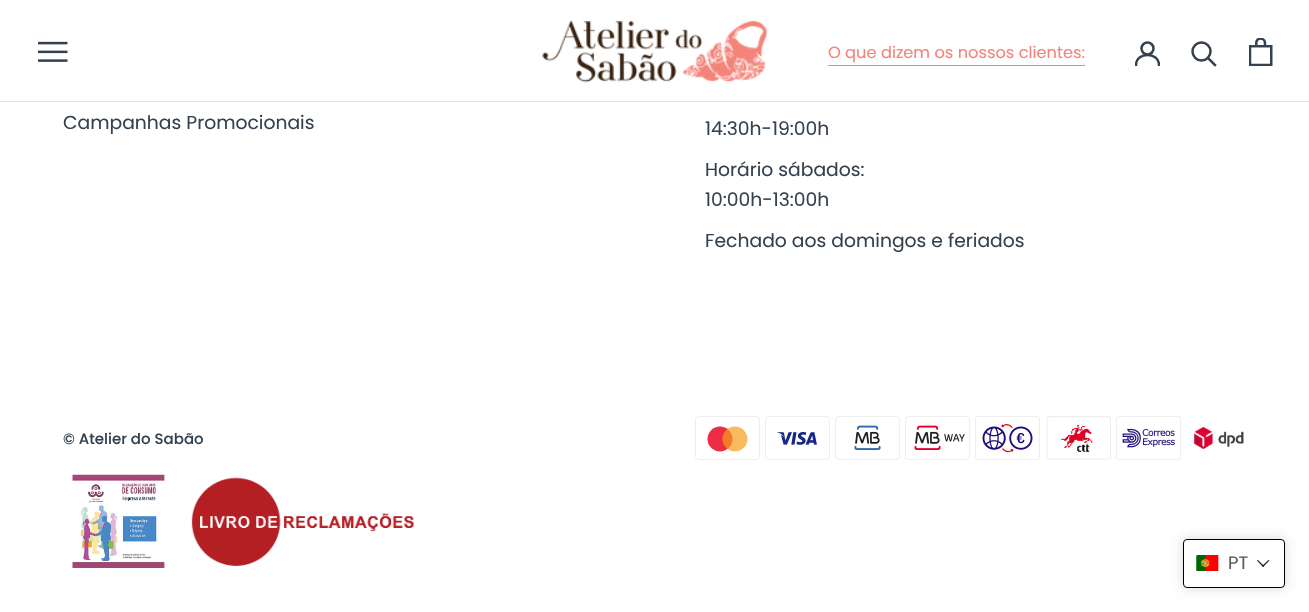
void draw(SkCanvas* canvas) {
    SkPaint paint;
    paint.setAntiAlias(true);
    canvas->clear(0xFFFFFFFF);
    paint.setColor(0xFFE1E3E4);
    canvas->drawRect(SkRect::MakeXYWH(0, 101, 1309, 1), paint);
    canvas->drawImageRect(SkImages::DeferredFromEncodedData(SkData::MakeFromFileName("img1.png")), SkRect::MakeXYWH(38, 41, 30, 21), SkSamplingOptions());
    canvas->drawImageRect(SkImages::DeferredFromEncodedData(SkData::MakeFromFileName("img2.png")), SkRect::MakeXYWH(542, 20, 226, 63), SkSamplingOptions());
    paint.setColor(0xFFF48479);
    canvas->drawRect(SkRect::MakeXYWH(828, 65, 257, 1), paint);
    SkFont font1(fontMgr->matchFamilyStyle("Poppins", SkFontStyle::Normal()), 16.25f);
    font1.setSubpixel(true);
    canvas->drawString("O que dizem os nossos clientes:", 828, 58, font1, paint);
    canvas->save();
    canvas->clipRect(SkRect::MakeXYWH(1135, 41, 25, 25));
    paint.setStyle(SkPaint::kStroke_Style);
    paint.setStrokeWidth(2.5f);
    paint.setStrokeCap(SkPaint::kSquare_Cap);
    paint.setColor(0xFF34414E);
    canvas->drawPath(SkPathBuilder().moveTo(1136, 65).cubicTo(1136, 51.5f, 1159, 51.5f, 1159, 65).detach(), paint);
    canvas->restore();
    paint.setStrokeCap(SkPaint::kButt_Cap);
    canvas->drawCircle(1147.5f, 48.5f, 6, paint);
    paint.setStrokeCap(SkPaint::kSquare_Cap);
    canvas->drawPath(SkPathBuilder().moveTo(1215, 65).lineTo(1208, 58).detach(), paint);
    paint.setStrokeCap(SkPaint::kButt_Cap);
    canvas->drawCircle(1201.5f, 51.5f, 9, paint);
    canvas->drawImageRect(SkImages::DeferredFromEncodedData(SkData::MakeFromFileName("img3.png")), SkRect::MakeXYWH(1249, 38, 24, 28), SkSamplingOptions());
    SkFont font2(fontMgr->matchFamilyStyle("Poppins", SkFontStyle::Normal()), 18.75f);
    font2.setSubpixel(true);
    paint.setStyle(SkPaint::kFill_Style);
    canvas->drawString("Campanhas Promocionais", 63, 129, font2, paint);
    canvas->drawString("14:30h-19:00h", 705, 135, font2, paint);
    canvas->drawString("Horário sábados:", 705, 176, font2, paint);
    canvas->drawString("10:00h-13:00h", 705, 206, font2, paint);
    canvas->drawString("Fechado aos domingos e feriados", 705, 247, font2, paint);
    SkFont font3(fontMgr->matchFamilyStyle("Poppins", SkFontStyle(500, SkFontStyle::kNormal_Width, SkFontStyle::kUpright_Slant)), 15);
    font3.setSubpixel(true);
    canvas->drawString("© Atelier do Sabão", 63, 444, font3, paint);
    paint.setStyle(SkPaint::kStroke_Style);
    paint.setStrokeWidth(1);
    paint.setColor(0xFFEEEEEE);
    canvas->drawRoundRect(SkRect::MakeXYWH(695.5f, 416.5f, 64, 43), 3.5f, 3.5f, paint);
    canvas->drawImageRect(SkImages::DeferredFromEncodedData(SkData::MakeFromFileName("img4.png")), SkRect::MakeXYWH(765, 416, 65, 44), SkSamplingOptions());
    canvas->drawImageRect(SkImages::DeferredFromEncodedData(SkData::MakeFromFileName("img5.png")), SkRect::MakeXYWH(835, 416, 65, 44), SkSamplingOptions());
    canvas->drawImageRect(SkImages::DeferredFromEncodedData(SkData::MakeFromFileName("img6.png")), SkRect::MakeXYWH(905, 416, 65, 44), SkSamplingOptions());
    canvas->drawImageRect(SkImages::DeferredFromEncodedData(SkData::MakeFromFileName("img7.png")), SkRect::MakeXYWH(975, 416, 65, 44), SkSamplingOptions());
    canvas->drawImageRect(SkImages::DeferredFromEncodedData(SkData::MakeFromFileName("img8.png")), SkRect::MakeXYWH(1046, 416, 65, 44), SkSamplingOptions());
    canvas->drawImageRect(SkImages::DeferredFromEncodedData(SkData::MakeFromFileName("img9.png")), SkRect::MakeXYWH(1116, 416, 65, 44), SkSamplingOptions());
    paint.setStyle(SkPaint::kFill_Style);
    paint.setColor(0xFFEC2D43);
    canvas->drawCircle(720, 439, 12.5f, paint);
    paint.setColor(0xB3F79E1B);
    canvas->drawCircle(735, 439, 12.5f, paint);
    canvas->drawImageRect(SkImages::DeferredFromEncodedData(SkData::MakeFromFileName("img10.png")), SkRect::MakeXYWH(1193, 426, 51, 25), SkSamplingOptions());
    canvas->drawImageRect(SkImages::DeferredFromEncodedData(SkData::MakeFromFileName("img11.png")), SkRect::MakeXYWH(72, 474, 93, 94), SkSamplingOptions());
    canvas->drawImageRect(SkImages::DeferredFromEncodedData(SkData::MakeFromFileName("img12.png")), SkRect::MakeXYWH(191, 477, 223, 89), SkSamplingOptions());
    paint.setColor(0x26000000);
    paint.setMaskFilter(SkMaskFilter::MakeBlur(kNormal_SkBlurStyle, 6));
    canvas->drawRoundRect(SkRect::MakeXYWH(1183, 539, 102, 49), 4, 4, paint);
    paint.setMaskFilter(nullptr);
    paint.setColor(0xFFFFFFFF);
    canvas->drawRoundRect(SkRect::MakeXYWH(1183.5f, 539.5f, 101, 48), 3.5f, 3.5f, paint);
    paint.setStyle(SkPaint::kStroke_Style);
    paint.setColor(0xFF000000);
    canvas->drawRoundRect(SkRect::MakeXYWH(1183.5f, 539.5f, 101, 48), 3.5f, 3.5f, paint);
    canvas->drawImageRect(SkImages::DeferredFromEncodedData(SkData::MakeFromFileName("img13.png")), SkRect::MakeXYWH(1196, 555, 24, 16), SkSamplingOptions());
    SkFont font4(fontMgr->matchFamilyStyle("Poppins", SkFontStyle::Normal()), 18);
    font4.setSubpixel(true);
    paint.setStyle(SkPaint::kFill_Style);
    paint.setColor(0xFF5C5C5C);
    canvas->drawString("PT", 1228, 569, font4, paint);
    paint.setColor(0xFF1A1A1A);
    canvas->drawPath(SkPathBuilder().moveTo(1268.5f, 560).lineTo(1269.5f, 560.5f).lineTo(1263, 567).lineTo(1262, 566).close().detach(), paint);
    canvas->drawPath(SkPathBuilder().moveTo(1258, 560).lineTo(1264, 566).lineTo(1263, 567).lineTo(1257, 560.5f).close().detach(), paint);
}
